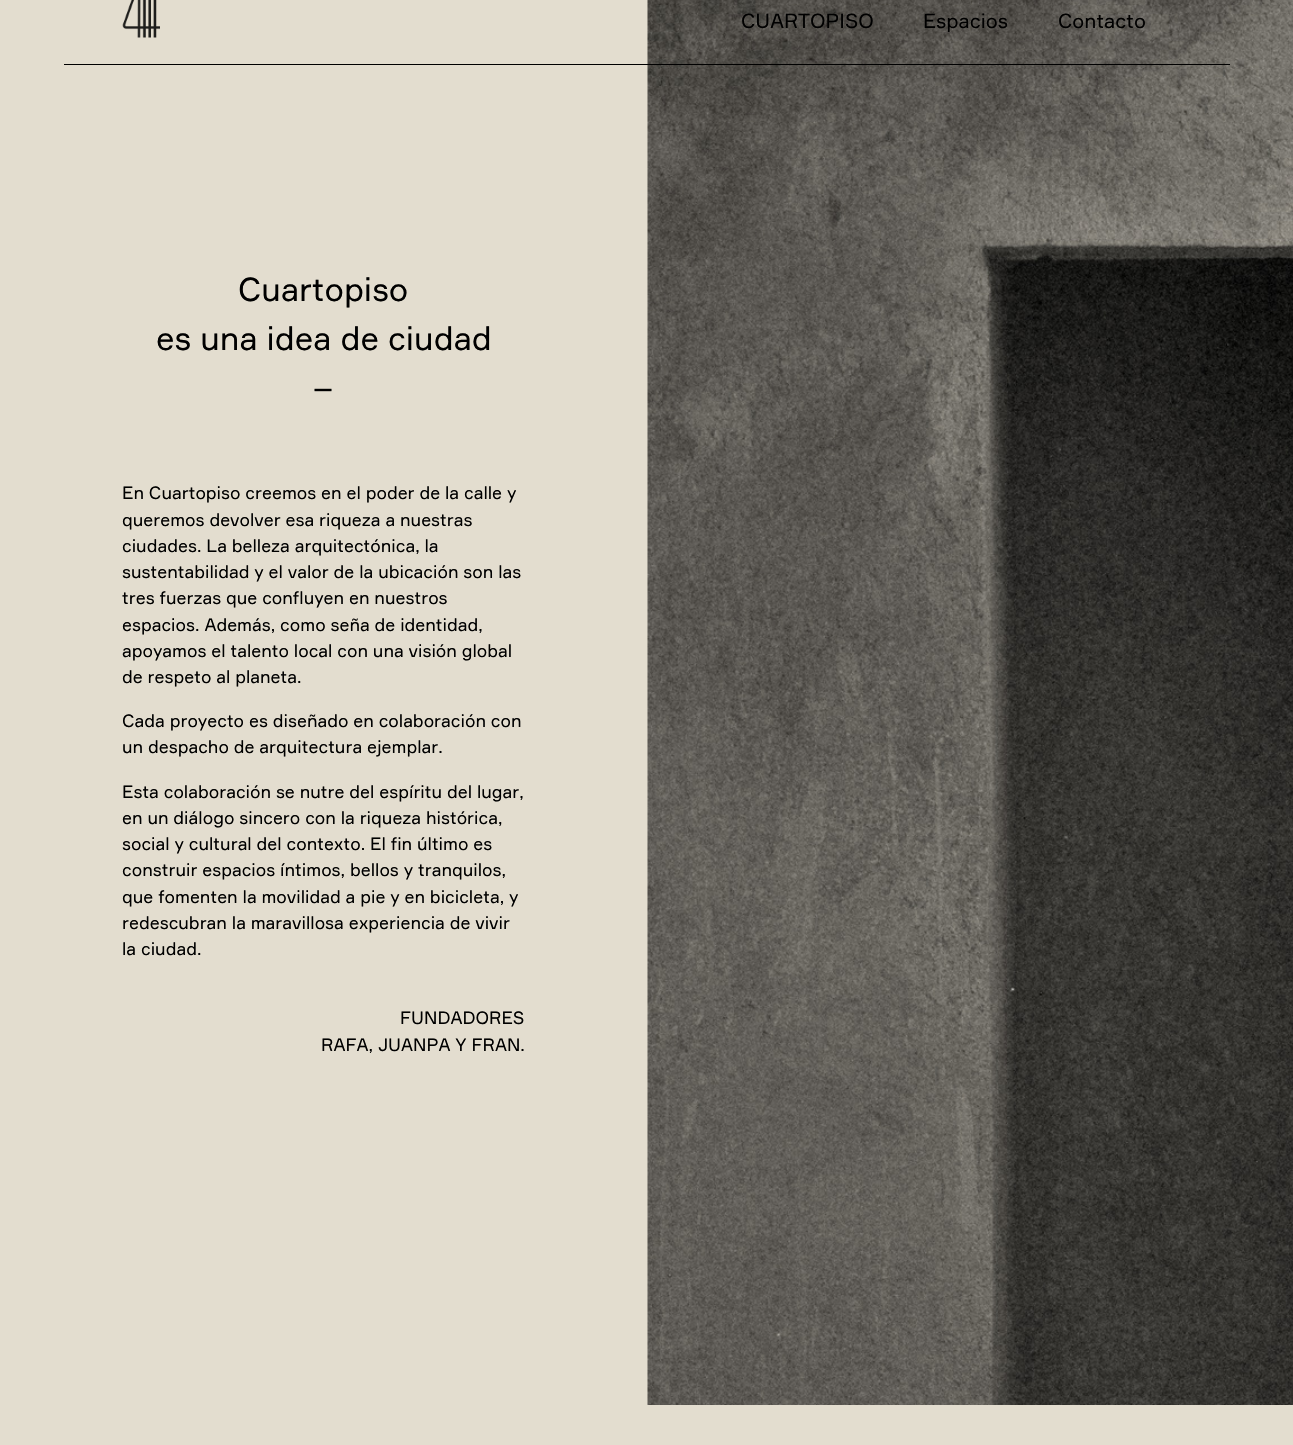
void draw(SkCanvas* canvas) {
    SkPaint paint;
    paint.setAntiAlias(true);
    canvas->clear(0xFFE3DDCF);
    canvas->drawImageRect(SkImages::DeferredFromEncodedData(SkData::MakeFromFileName("img1.png")), SkRect::MakeXYWH(122, 0, 38, 38), SkSamplingOptions());
    canvas->drawImageRect(SkImages::DeferredFromEncodedData(SkData::MakeFromFileName("img2.png")), SkRect::MakeXYWH(647, 0, 646, 1405), SkSamplingOptions());
    SkFont font1(fontMgr->matchFamilyStyle("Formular", SkFontStyle::Normal()), 20);
    font1.setSubpixel(true);
    paint.setColor(0xFF000000);
    canvas->drawString("CUARTOPISO", 741, 28, font1, paint);
    canvas->drawString("Espacios", 923, 28, font1, paint);
    canvas->drawString("Contacto", 1058, 28, font1, paint);
    canvas->drawRect(SkRect::MakeXYWH(64, 64, 1166, 1), paint);
    SkFont font2(fontMgr->matchFamilyStyle("Formular", SkFontStyle::Normal()), 32.5f);
    font2.setSubpixel(true);
    canvas->drawString("Cuartopiso", 238, 301, font2, paint);
    canvas->drawString("es una idea de ciudad", 156, 350, font2, paint);
    canvas->drawString("–", 313, 399, font2, paint);
    SkFont font3(fontMgr->matchFamilyStyle("Formular", SkFontStyle::Normal()), 17.5f);
    font3.setSubpixel(true);
    canvas->drawString("En Cuartopiso creemos en el poder de la calle y", 122, 499, font3, paint);
    canvas->drawString("queremos devolver esa riqueza a nuestras", 122, 526, font3, paint);
    canvas->drawString("ciudades. La belleza arquitectónica, la", 122, 552, font3, paint);
    canvas->drawString("sustentabilidad y el valor de la ubicación son las", 122, 578, font3, paint);
    canvas->drawString("tres fuerzas que confluyen en nuestros", 122, 604, font3, paint);
    canvas->drawString("espacios. Además, como seña de identidad,", 122, 631, font3, paint);
    canvas->drawString("apoyamos el talento local con una visión global", 122, 657, font3, paint);
    canvas->drawString("de respeto al planeta.", 122, 683, font3, paint);
    canvas->drawString("Cada proyecto es diseñado en colaboración con", 122, 727, font3, paint);
    canvas->drawString("un despacho de arquitectura ejemplar.", 122, 753, font3, paint);
    canvas->drawString("Esta colaboración se nutre del espíritu del lugar,", 122, 798, font3, paint);
    canvas->drawString("en un diálogo sincero con la riqueza histórica,", 122, 824, font3, paint);
    canvas->drawString("social y cultural del contexto. El fin último es", 122, 850, font3, paint);
    canvas->drawString("construir espacios íntimos, bellos y tranquilos,", 122, 876, font3, paint);
    canvas->drawString("que fomenten la movilidad a pie y en bicicleta, y", 122, 903, font3, paint);
    canvas->drawString("redescubran la maravillosa experiencia de vivir", 122, 929, font3, paint);
    canvas->drawString("la ciudad.", 122, 955, font3, paint);
    canvas->drawString("FUNDADORES", 400, 1024, font3, paint);
    canvas->drawString("RAFA, JUANPA Y FRAN.", 321, 1051, font3, paint);
}
